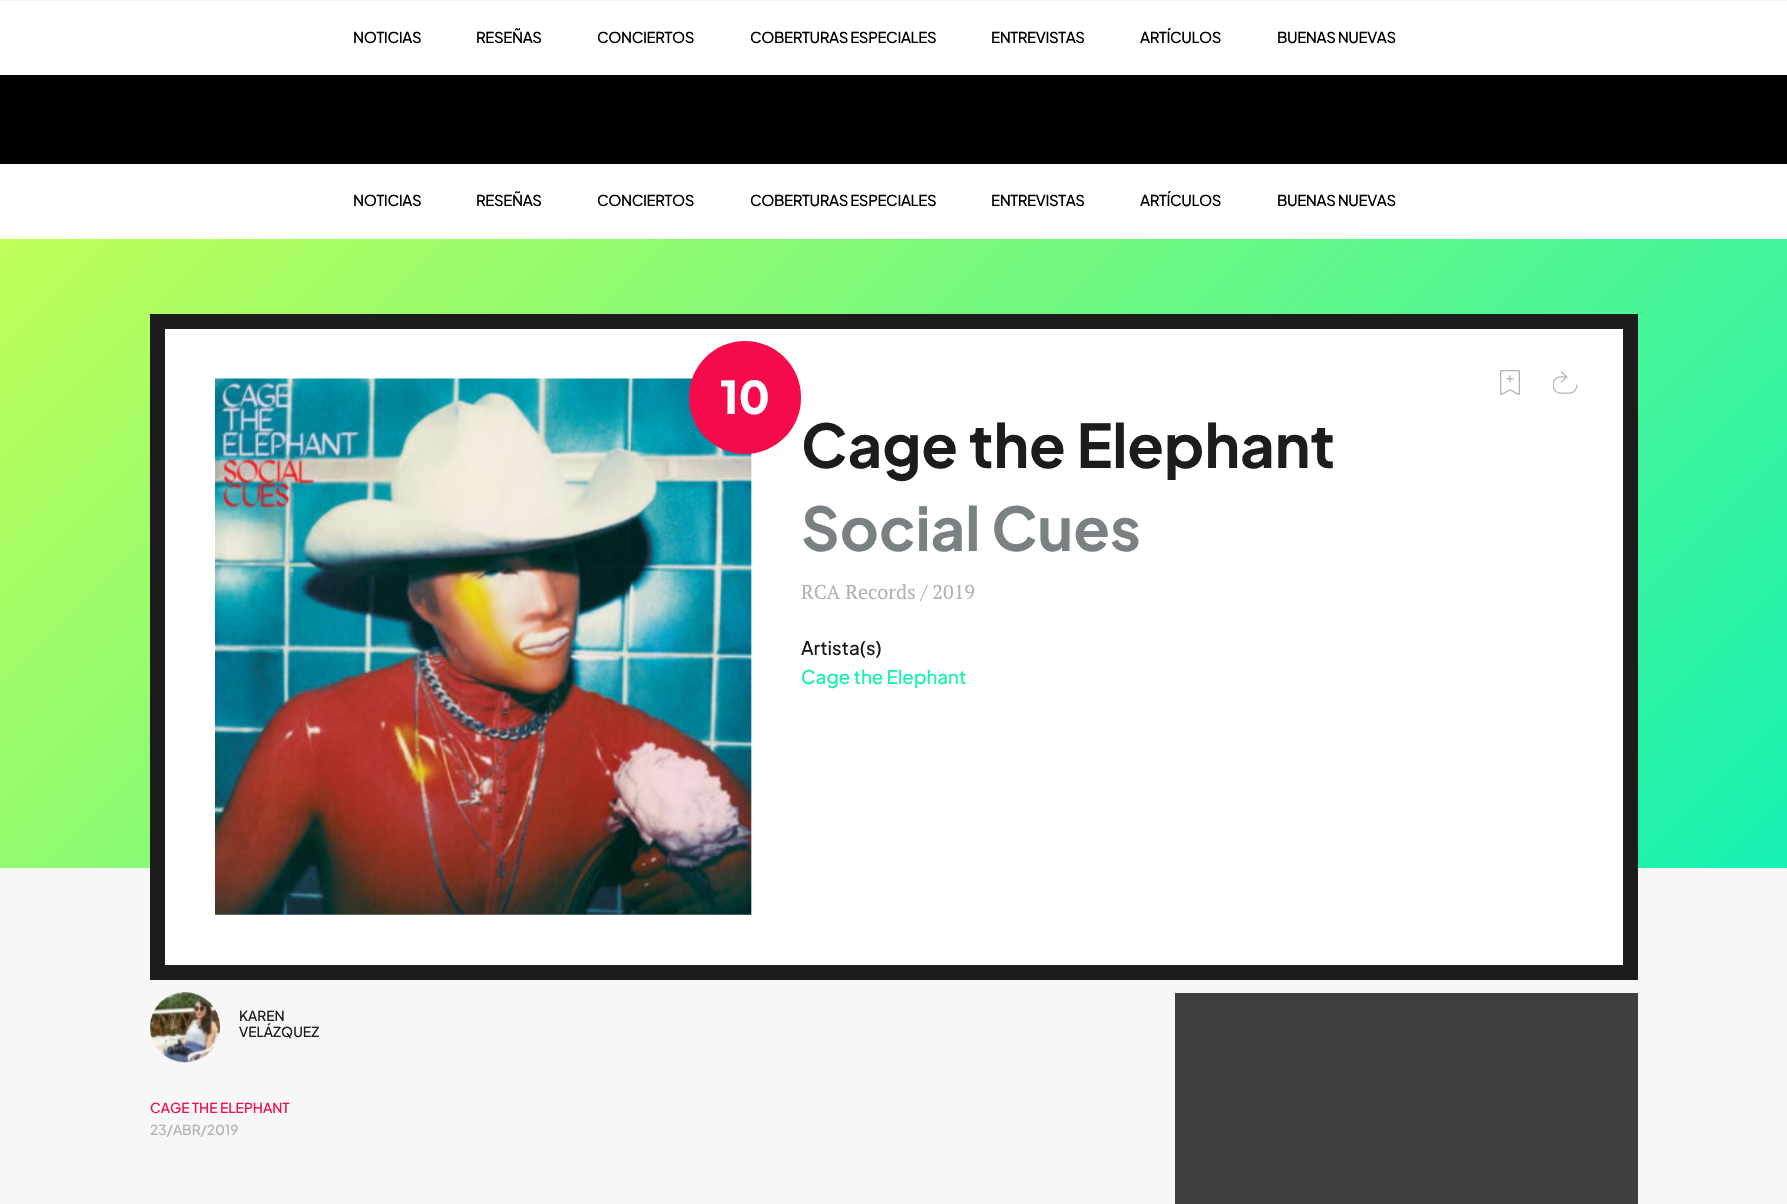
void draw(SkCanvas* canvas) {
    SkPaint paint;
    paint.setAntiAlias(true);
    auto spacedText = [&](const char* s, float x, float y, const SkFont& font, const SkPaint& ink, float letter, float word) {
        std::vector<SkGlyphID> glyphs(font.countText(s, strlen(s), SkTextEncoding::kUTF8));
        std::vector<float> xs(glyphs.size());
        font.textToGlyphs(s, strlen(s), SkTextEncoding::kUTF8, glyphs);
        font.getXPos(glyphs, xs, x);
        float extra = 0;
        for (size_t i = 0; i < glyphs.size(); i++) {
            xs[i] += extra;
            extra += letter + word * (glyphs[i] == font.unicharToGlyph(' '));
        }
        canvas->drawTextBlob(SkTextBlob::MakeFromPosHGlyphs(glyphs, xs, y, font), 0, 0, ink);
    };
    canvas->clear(0xFFF7F7F7);
    paint.setColor(0xFFFFFFFF);
    canvas->drawRect(SkRect::MakeXYWH(0, 1, 1787, 74), paint);
    SkFont font1(fontMgr->matchFamilyStyle("Plus Jakarta Sans", SkFontStyle(500, SkFontStyle::kNormal_Width, SkFontStyle::kUpright_Slant)), 15);
    font1.setSubpixel(true);
    paint.setColor(0xFF000000);
    spacedText("NOTICIAS", 353, 43, font1, paint, -0.4f, 0);
    spacedText("RESEÑAS", 476, 43, font1, paint, -0.4f, 0);
    spacedText("CONCIERTOS", 597, 43, font1, paint, -0.4f, 0);
    spacedText("COBERTURAS ESPECIALES", 750, 43, font1, paint, -0.4f, 0);
    spacedText("ENTREVISTAS", 991, 43, font1, paint, -0.4f, 0);
    spacedText("ARTÍCULOS", 1140, 43, font1, paint, -0.4f, 0);
    spacedText("BUENAS NUEVAS", 1277, 43, font1, paint, -0.4f, 0);
    paint.setColor(0xFFFFFFFF);
    canvas->drawRect(SkRect::MakeXYWH(0, 164, 1787, 75), paint);
    paint.setColor(0xFF000000);
    spacedText("NOTICIAS", 353, 206, font1, paint, -0.4f, 0);
    spacedText("RESEÑAS", 476, 206, font1, paint, -0.4f, 0);
    spacedText("CONCIERTOS", 597, 206, font1, paint, -0.4f, 0);
    spacedText("COBERTURAS ESPECIALES", 750, 206, font1, paint, -0.4f, 0);
    spacedText("ENTREVISTAS", 991, 206, font1, paint, -0.4f, 0);
    spacedText("ARTÍCULOS", 1140, 206, font1, paint, -0.4f, 0);
    spacedText("BUENAS NUEVAS", 1277, 206, font1, paint, -0.4f, 0);
    canvas->drawRect(SkRect::MakeXYWH(0, 75, 1787, 89), paint);
    {
        const SkColor colors[] = {0xFFBFFF58, 0xFF16F1B2};
        const float stops[] = {0, 1};
        const SkPoint ends[] = {{290, -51}, {1498, 1157}};
        paint.setShader(SkGradientShader::MakeLinear(ends, colors, stops, 2, SkTileMode::kClamp));
        paint.setAlpha(255);
    }
    canvas->drawRect(SkRect::MakeXYWH(0, 239, 1787, 629), paint);
    paint.setShader(nullptr);
    paint.setColor(0xFFFFFFFF);
    canvas->drawRect(SkRect::MakeXYWH(157.5f, 321.5f, 1473, 651), paint);
    paint.setStyle(SkPaint::kStroke_Style);
    paint.setStrokeWidth(15);
    paint.setColor(0xFF1C1C1C);
    canvas->drawRect(SkRect::MakeXYWH(157.5f, 321.5f, 1473, 651), paint);
    canvas->drawImageRect(SkImages::DeferredFromEncodedData(SkData::MakeFromFileName("img1.png")), SkRect::MakeXYWH(215, 378, 537, 537), SkSamplingOptions());
    paint.setStyle(SkPaint::kFill_Style);
    paint.setColor(0xFFF50B4B);
    canvas->drawRoundRect(SkRect::MakeXYWH(689, 341, 112, 113), 56, 56, paint);
    SkFont font2(fontMgr->matchFamilyStyle("Plus Jakarta Sans", SkFontStyle(800, SkFontStyle::kNormal_Width, SkFontStyle::kUpright_Slant)), 45);
    font2.setSubpixel(true);
    paint.setColor(0xFFFFFFFF);
    canvas->drawString("10", 720, 414, font2, paint);
    SkFont font3(fontMgr->matchFamilyStyle("Plus Jakarta Sans", SkFontStyle::Bold()), 60);
    font3.setSubpixel(true);
    paint.setColor(0xFF1C1C1C);
    canvas->drawString("Cage the Elephant", 801, 468, font3, paint);
    paint.setColor(0xFF798183);
    canvas->drawString("Social Cues", 801, 551, font3, paint);
    SkFont font4(fontMgr->matchFamilyStyle("PT Serif", SkFontStyle::Normal()), 20);
    font4.setSubpixel(true);
    paint.setColor(0xFFB2B2B2);
    canvas->drawString("RCA Records / 2019", 801, 599, font4, paint);
    SkFont font5(fontMgr->matchFamilyStyle("Plus Jakarta Sans", SkFontStyle(500, SkFontStyle::kNormal_Width, SkFontStyle::kUpright_Slant)), 18.75f);
    font5.setSubpixel(true);
    paint.setColor(0xFF1C1C1C);
    canvas->drawString("Artista(s)", 801, 655, font5, paint);
    paint.setColor(0xFF16F1B2);
    canvas->drawString("Cage the Elephant", 801, 684, font5, paint);
    canvas->drawImageRect(SkImages::DeferredFromEncodedData(SkData::MakeFromFileName("img2.png")), SkRect::MakeXYWH(1500, 370, 20, 25), SkSamplingOptions());
    canvas->drawImageRect(SkImages::DeferredFromEncodedData(SkData::MakeFromFileName("img3.png")), SkRect::MakeXYWH(1553, 371, 25, 23), SkSamplingOptions());
    canvas->drawImageRect(SkImages::DeferredFromEncodedData(SkData::MakeFromFileName("img4.png")), SkRect::MakeXYWH(150, 992, 70, 71), SkSamplingOptions());
    SkFont font6(fontMgr->matchFamilyStyle("Plus Jakarta Sans", SkFontStyle(500, SkFontStyle::kNormal_Width, SkFontStyle::kUpright_Slant)), 13.75f);
    font6.setSubpixel(true);
    paint.setColor(0xFF1C1C1C);
    canvas->drawString("KAREN", 239, 1021, font6, paint);
    canvas->drawString("VELÁZQUEZ", 239, 1037, font6, paint);
    paint.setColor(0xFFF50B4B);
    canvas->drawString("CAGE THE ELEPHANT", 150, 1113, font6, paint);
    paint.setColor(0xFFB2B2B2);
    canvas->drawString("23/ABR/2019", 150, 1135, font6, paint);
    paint.setColor(0xFF403E3F);
    canvas->drawRect(SkRect::MakeXYWH(1175, 993, 463, 211), paint);
}
